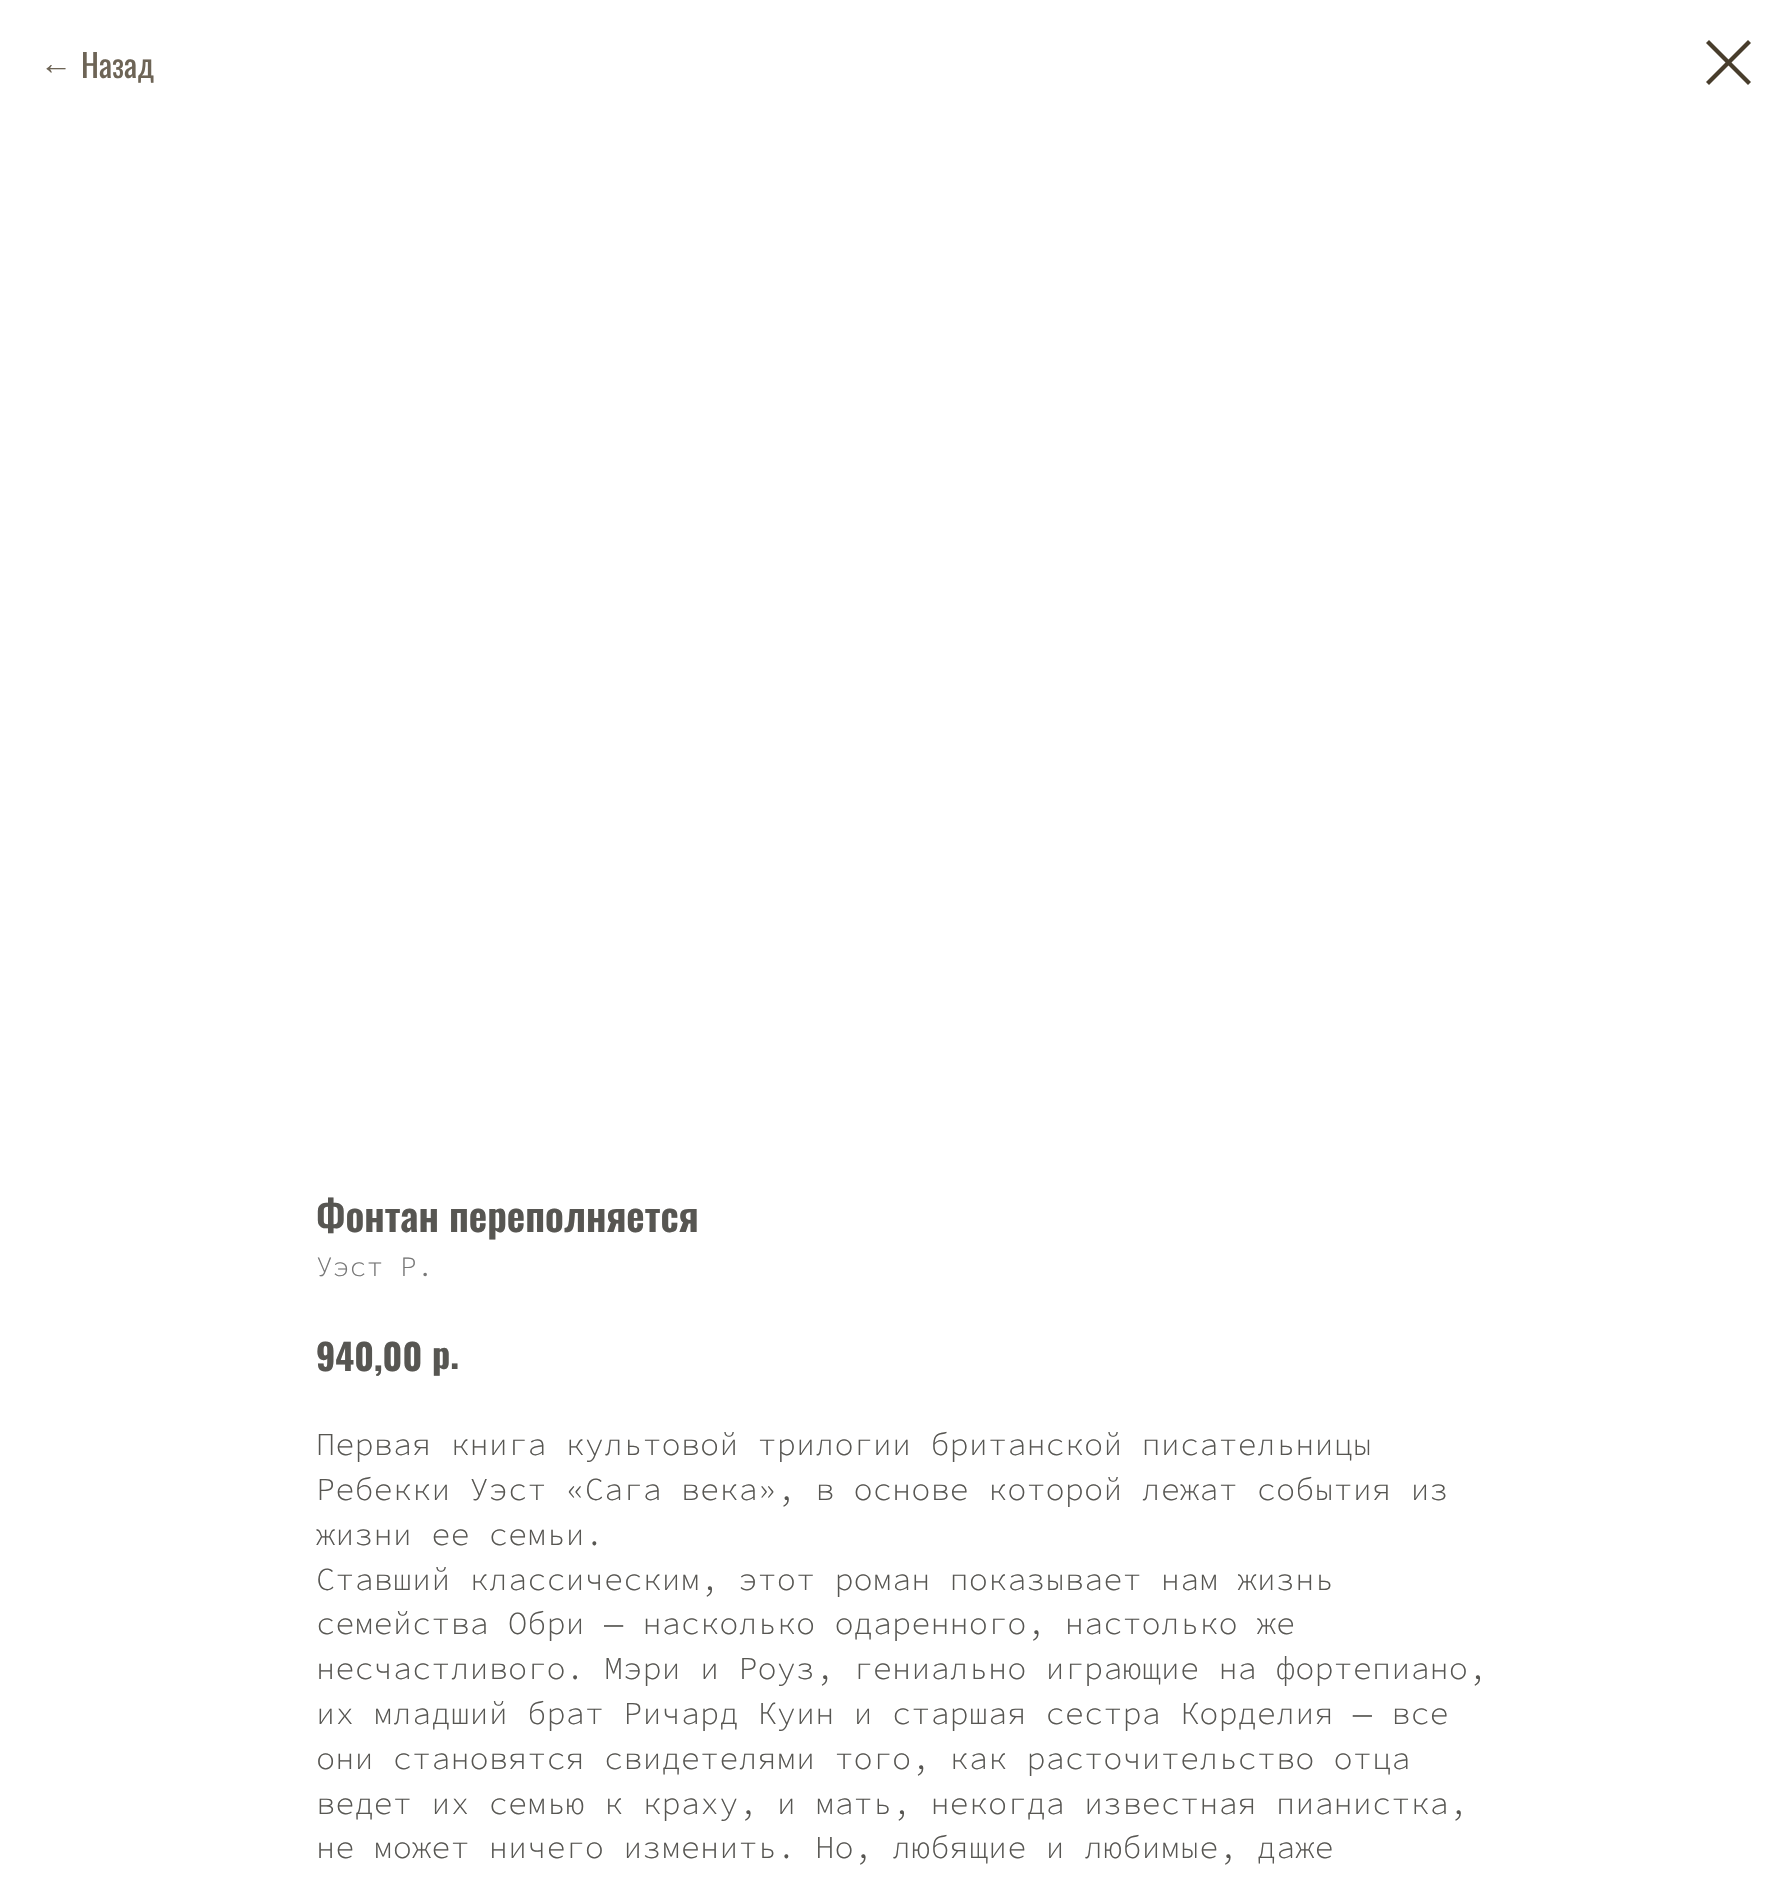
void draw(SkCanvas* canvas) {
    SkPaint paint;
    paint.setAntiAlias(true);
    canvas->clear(0xFFFFFFFF);
    SkFont font1(fontMgr->matchFamilyStyle("Liberation Sans", SkFontStyle::Normal()), 32);
    font1.setSubpixel(true);
    paint.setColor(0xFF6D6456);
    canvas->drawString("←", 40, 74, font1, paint);
    SkFont font2(fontMgr->matchFamilyStyle("Oswald", SkFontStyle::Normal()), 32);
    font2.setSubpixel(true);
    canvas->drawString("Назад", 81, 78, font2, paint);
    paint.setColor(0xFF483D2C);
    canvas->drawPath(SkPathBuilder(SkPathFillType::kEvenOdd).moveTo(1706, 43).lineTo(1709, 40).lineTo(1751, 82).lineTo(1748, 85).close().detach(), paint);
    canvas->drawPath(SkPathBuilder(SkPathFillType::kEvenOdd).moveTo(1748, 40).lineTo(1751, 43).lineTo(1709, 85).lineTo(1706, 82).close().detach(), paint);
    SkFont font3(fontMgr->matchFamilyStyle("Oswald", SkFontStyle(600, SkFontStyle::kNormal_Width, SkFontStyle::kUpright_Slant)), 40);
    font3.setSubpixel(true);
    paint.setColor(0xFF575652);
    canvas->drawString("Фонтан переполняется", 316, 1232, font3, paint);
    SkFont font4(fontMgr->matchFamilyStyle("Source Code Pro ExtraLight", SkFontStyle(300, SkFontStyle::kNormal_Width, SkFontStyle::kUpright_Slant)), 28);
    font4.setSubpixel(true);
    paint.setColor(0xFF777777);
    canvas->drawString("Уэст Р.", 316, 1276, font4, paint);
    SkFont font5(fontMgr->matchFamilyStyle("Oswald", SkFontStyle::Bold()), 36);
    font5.setSubpixel(true);
    paint.setColor(0xFF575652);
    canvas->drawString("940,00", 316, 1371, font5, paint);
    canvas->drawString("р.", 432, 1369, font5, paint);
    SkFont font6(fontMgr->matchFamilyStyle("Source Code Pro ExtraLight", SkFontStyle(300, SkFontStyle::kNormal_Width, SkFontStyle::kUpright_Slant)), 32);
    font6.setSubpixel(true);
    canvas->drawString("Первая книга культовой трилогии британской писательницы", 316, 1455, font6, paint);
    canvas->drawString("Ребекки Уэст «Сага века», в основе которой лежат события из", 316, 1500, font6, paint);
    canvas->drawString("жизни ее семьи.", 316, 1545, font6, paint);
    canvas->drawString("Ставший классическим, этот роман показывает нам жизнь", 316, 1590, font6, paint);
    canvas->drawString("семейства Обри — насколько одаренного, настолько же", 316, 1634, font6, paint);
    canvas->drawString("несчастливого. Мэри и Роуз, гениально играющие на фортепиано,", 316, 1679, font6, paint);
    canvas->drawString("их младший брат Ричард Куин и старшая сестра Корделия — все", 316, 1724, font6, paint);
    canvas->drawString("они становятся свидетелями того, как расточительство отца", 316, 1769, font6, paint);
    canvas->drawString("ведет их семью к краху, и мать, некогда известная пианистка,", 316, 1814, font6, paint);
    canvas->drawString("не может ничего изменить. Но, любящие и любимые, даже", 316, 1858, font6, paint);
}
